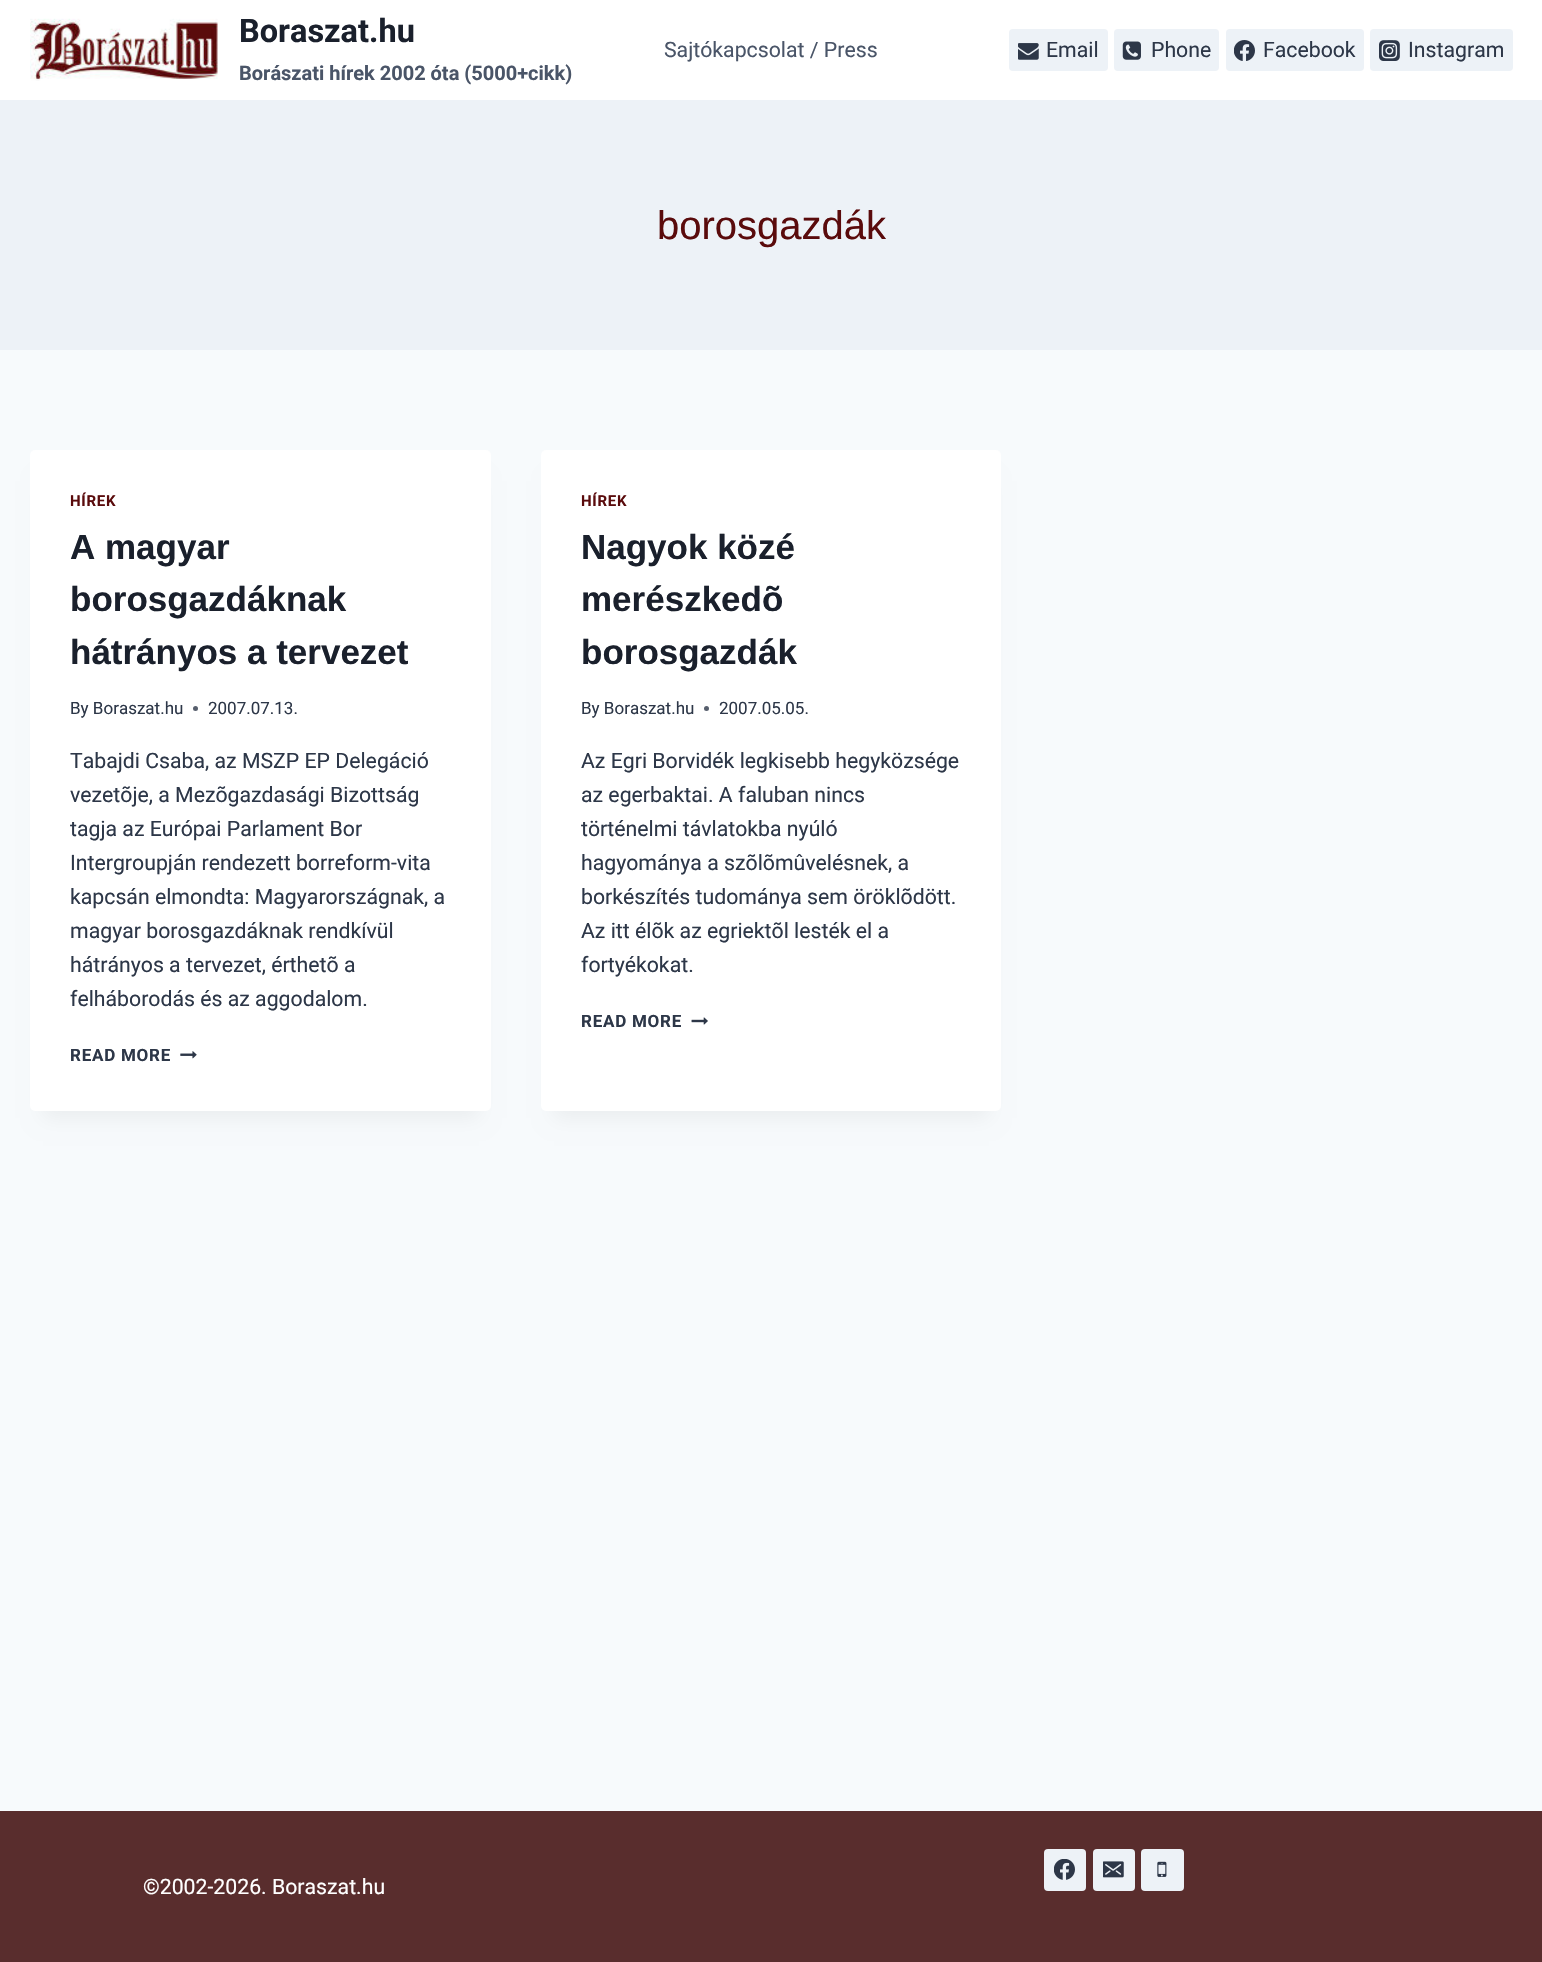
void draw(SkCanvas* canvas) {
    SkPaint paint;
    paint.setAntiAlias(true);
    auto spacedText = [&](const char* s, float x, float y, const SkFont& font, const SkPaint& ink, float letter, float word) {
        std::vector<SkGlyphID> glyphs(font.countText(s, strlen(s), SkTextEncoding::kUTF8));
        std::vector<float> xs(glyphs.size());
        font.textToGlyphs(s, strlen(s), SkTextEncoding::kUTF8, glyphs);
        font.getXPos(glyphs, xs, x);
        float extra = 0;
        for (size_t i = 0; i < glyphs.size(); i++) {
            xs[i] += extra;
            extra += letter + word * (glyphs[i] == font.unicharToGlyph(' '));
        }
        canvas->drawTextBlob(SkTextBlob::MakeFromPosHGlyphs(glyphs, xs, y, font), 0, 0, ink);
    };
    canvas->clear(0xFFF7FAFC);
    paint.setColor(0xFFFFFFFF);
    canvas->drawRect(SkRect::MakeXYWH(0, 0, 1542, 100), paint);
    canvas->drawImageRect(SkImages::DeferredFromEncodedData(SkData::MakeFromFileName("img1.png")), SkRect::MakeXYWH(30, 18, 188, 63), SkSamplingOptions());
    SkFont font1(fontMgr->matchFamilyStyle("Roboto", SkFontStyle::Bold()), 32.5f);
    font1.setSubpixel(true);
    paint.setColor(0xFF1A202C);
    canvas->drawString("Boraszat.hu", 239, 42, font1, paint);
    SkFont font2(fontMgr->matchFamilyStyle("Roboto", SkFontStyle::Bold()), 20);
    font2.setSubpixel(true);
    paint.setColor(0xFF4A5568);
    canvas->drawString("Borászati hírek 2002 óta (5000+cikk)", 239, 80, font2, paint);
    SkFont font3(fontMgr->matchFamilyStyle("Roboto", SkFontStyle::Normal()), 21.25f);
    font3.setSubpixel(true);
    canvas->drawString("Sajtókapcsolat / Press", 664, 57, font3, paint);
    paint.setColor(0xFFEDF2F7);
    canvas->drawRoundRect(SkRect::MakeXYWH(1009, 29, 99, 42), 4, 4, paint);
    canvas->drawImageRect(SkImages::DeferredFromEncodedData(SkData::MakeFromFileName("img2.png")), SkRect::MakeXYWH(1018, 43, 21, 17), SkSamplingOptions());
    paint.setColor(0xFF2D3748);
    canvas->drawString("Email", 1046, 57, font3, paint);
    paint.setColor(0xFFEDF2F7);
    canvas->drawRoundRect(SkRect::MakeXYWH(1114, 29, 105, 42), 4, 4, paint);
    canvas->drawImageRect(SkImages::DeferredFromEncodedData(SkData::MakeFromFileName("img3.png")), SkRect::MakeXYWH(1122, 41, 19, 19), SkSamplingOptions());
    paint.setColor(0xFF2D3748);
    canvas->drawString("Phone", 1151, 57, font3, paint);
    paint.setColor(0xFFEDF2F7);
    canvas->drawRoundRect(SkRect::MakeXYWH(1226, 29, 138, 42), 4, 4, paint);
    canvas->drawImageRect(SkImages::DeferredFromEncodedData(SkData::MakeFromFileName("img4.png")), SkRect::MakeXYWH(1234, 40, 21, 21), SkSamplingOptions());
    paint.setColor(0xFF2D3748);
    canvas->drawString("Facebook", 1263, 57, font3, paint);
    paint.setColor(0xFFEDF2F7);
    canvas->drawRoundRect(SkRect::MakeXYWH(1370, 29, 143, 42), 4, 4, paint);
    canvas->drawImageRect(SkImages::DeferredFromEncodedData(SkData::MakeFromFileName("img5.png")), SkRect::MakeXYWH(1379, 40, 21, 21), SkSamplingOptions());
    paint.setColor(0xFF2D3748);
    canvas->drawString("Instagram", 1408, 57, font3, paint);
    paint.setColor(0xFFEDF2F7);
    canvas->drawRect(SkRect::MakeXYWH(0, 100, 1542, 250), paint);
    SkFont font4(fontMgr->matchFamilyStyle("Liberation Sans", SkFontStyle::Normal()), 40);
    font4.setSubpixel(true);
    paint.setColor(0xFF5A0B0C);
    canvas->drawString("borosgazdák", 657, 239, font4, paint);
    paint.setColor(0x0D000000);
    paint.setMaskFilter(SkMaskFilter::MakeBlur(kNormal_SkBlurStyle, 9.5f));
    canvas->drawRect(SkRect::MakeXYWH(43, 481, 436, 637), paint);
    paint.setMaskFilter(nullptr);
    paint.setColor(0xFFFFFFFF);
    canvas->drawRoundRect(SkRect::MakeXYWH(30, 450, 461, 661), 5, 5, paint);
    SkFont font5(fontMgr->matchFamilyStyle("Roboto", SkFontStyle::Bold()), 15);
    font5.setSubpixel(true);
    paint.setColor(0xFF5A0B0C);
    spacedText("HÍREK", 70, 506, font5, paint, 0.75f, 0);
    SkFont font6(fontMgr->matchFamilyStyle("Liberation Sans", SkFontStyle::Bold()), 35);
    font6.setSubpixel(true);
    paint.setColor(0xFF1A202C);
    canvas->drawString("A magyar", 70, 559, font6, paint);
    canvas->drawString("borosgazdáknak", 70, 611, font6, paint);
    canvas->drawString("hátrányos a tervezet", 70, 664, font6, paint);
    SkFont font7(fontMgr->matchFamilyStyle("Roboto", SkFontStyle::Normal()), 17);
    font7.setSubpixel(true);
    paint.setColor(0xFF2D3748);
    canvas->drawString("By Boraszat.hu", 70, 714, font7, paint);
    paint.setColor(0xFF575F6D);
    canvas->drawCircle(195.5f, 708.5f, 2.5f, paint);
    paint.setColor(0xFF2D3748);
    canvas->drawString("2007.07.13.", 208, 714, font7, paint);
    canvas->drawString("Tabajdi Csaba, az MSZP EP Delegáció", 70, 768, font3, paint);
    canvas->drawString("vezetõje, a Mezõgazdasági Bizottság", 70, 802, font3, paint);
    canvas->drawString("tagja az Európai Parlament Bor", 70, 836, font3, paint);
    canvas->drawString("Intergroupján rendezett borreform-vita", 70, 870, font3, paint);
    canvas->drawString("kapcsán elmondta: Magyarországnak, a", 70, 904, font3, paint);
    canvas->drawString("magyar borosgazdáknak rendkívül", 70, 938, font3, paint);
    canvas->drawString("hátrányos a tervezet, érthetõ a", 70, 972, font3, paint);
    canvas->drawString("felháborodás és az aggodalom.", 70, 1006, font3, paint);
    SkFont font8(fontMgr->matchFamilyStyle("Roboto", SkFontStyle::Bold()), 17);
    font8.setSubpixel(true);
    spacedText("READ MORE", 70, 1061, font8, paint, 0.75f, 0);
    canvas->drawImageRect(SkImages::DeferredFromEncodedData(SkData::MakeFromFileName("img6.png")), SkRect::MakeXYWH(180, 1051, 17, 8), SkSamplingOptions());
    paint.setColor(0x0D000000);
    paint.setMaskFilter(SkMaskFilter::MakeBlur(kNormal_SkBlurStyle, 9.5f));
    canvas->drawRect(SkRect::MakeXYWH(554, 481, 435, 637), paint);
    paint.setMaskFilter(nullptr);
    paint.setColor(0xFFFFFFFF);
    canvas->drawRoundRect(SkRect::MakeXYWH(541, 450, 460, 661), 5, 5, paint);
    paint.setColor(0xFF5A0B0C);
    spacedText("HÍREK", 581, 506, font5, paint, 0.75f, 0);
    paint.setColor(0xFF1A202C);
    canvas->drawString("Nagyok közé", 581, 559, font6, paint);
    canvas->drawString("merészkedõ", 581, 611, font6, paint);
    canvas->drawString("borosgazdák", 581, 664, font6, paint);
    paint.setColor(0xFF2D3748);
    canvas->drawString("By Boraszat.hu", 581, 714, font7, paint);
    paint.setColor(0xFF575F6D);
    canvas->drawCircle(706.5f, 708.5f, 2.5f, paint);
    paint.setColor(0xFF2D3748);
    canvas->drawString("2007.05.05.", 719, 714, font7, paint);
    canvas->drawString("Az Egri Borvidék legkisebb hegyközsége", 581, 768, font3, paint);
    canvas->drawString("az egerbaktai. A faluban nincs", 581, 802, font3, paint);
    canvas->drawString("történelmi távlatokba nyúló", 581, 836, font3, paint);
    canvas->drawString("hagyománya a szõlõmûvelésnek, a", 581, 870, font3, paint);
    canvas->drawString("borkészítés tudománya sem öröklõdött.", 581, 904, font3, paint);
    canvas->drawString("Az itt élõk az egriektõl lesték el a", 581, 938, font3, paint);
    canvas->drawString("fortyékokat.", 581, 972, font3, paint);
    spacedText("READ MORE", 581, 1027, font8, paint, 0.75f, 0);
    canvas->drawImageRect(SkImages::DeferredFromEncodedData(SkData::MakeFromFileName("img7.png")), SkRect::MakeXYWH(691, 1017, 17, 8), SkSamplingOptions());
    paint.setColor(0xFF592D2D);
    canvas->drawRect(SkRect::MakeXYWH(0, 1811, 1542, 151), paint);
    paint.setColor(0xFFFFFFFF);
    canvas->drawString("©2002-2026. Boraszat.hu", 143, 1894, font3, paint);
    paint.setColor(0xFFEDF2F7);
    canvas->drawRoundRect(SkRect::MakeXYWH(1044, 1849, 42, 42), 4, 4, paint);
    canvas->drawImageRect(SkImages::DeferredFromEncodedData(SkData::MakeFromFileName("img8.png")), SkRect::MakeXYWH(1054, 1859, 21, 21), SkSamplingOptions());
    canvas->drawRoundRect(SkRect::MakeXYWH(1093, 1849, 42, 42), 4, 4, paint);
    canvas->drawImageRect(SkImages::DeferredFromEncodedData(SkData::MakeFromFileName("img9.png")), SkRect::MakeXYWH(1103, 1861, 21, 17), SkSamplingOptions());
    canvas->drawRoundRect(SkRect::MakeXYWH(1141, 1849, 43, 42), 4, 4, paint);
    canvas->drawImageRect(SkImages::DeferredFromEncodedData(SkData::MakeFromFileName("img10.png")), SkRect::MakeXYWH(1157, 1861, 10, 16), SkSamplingOptions());
}
